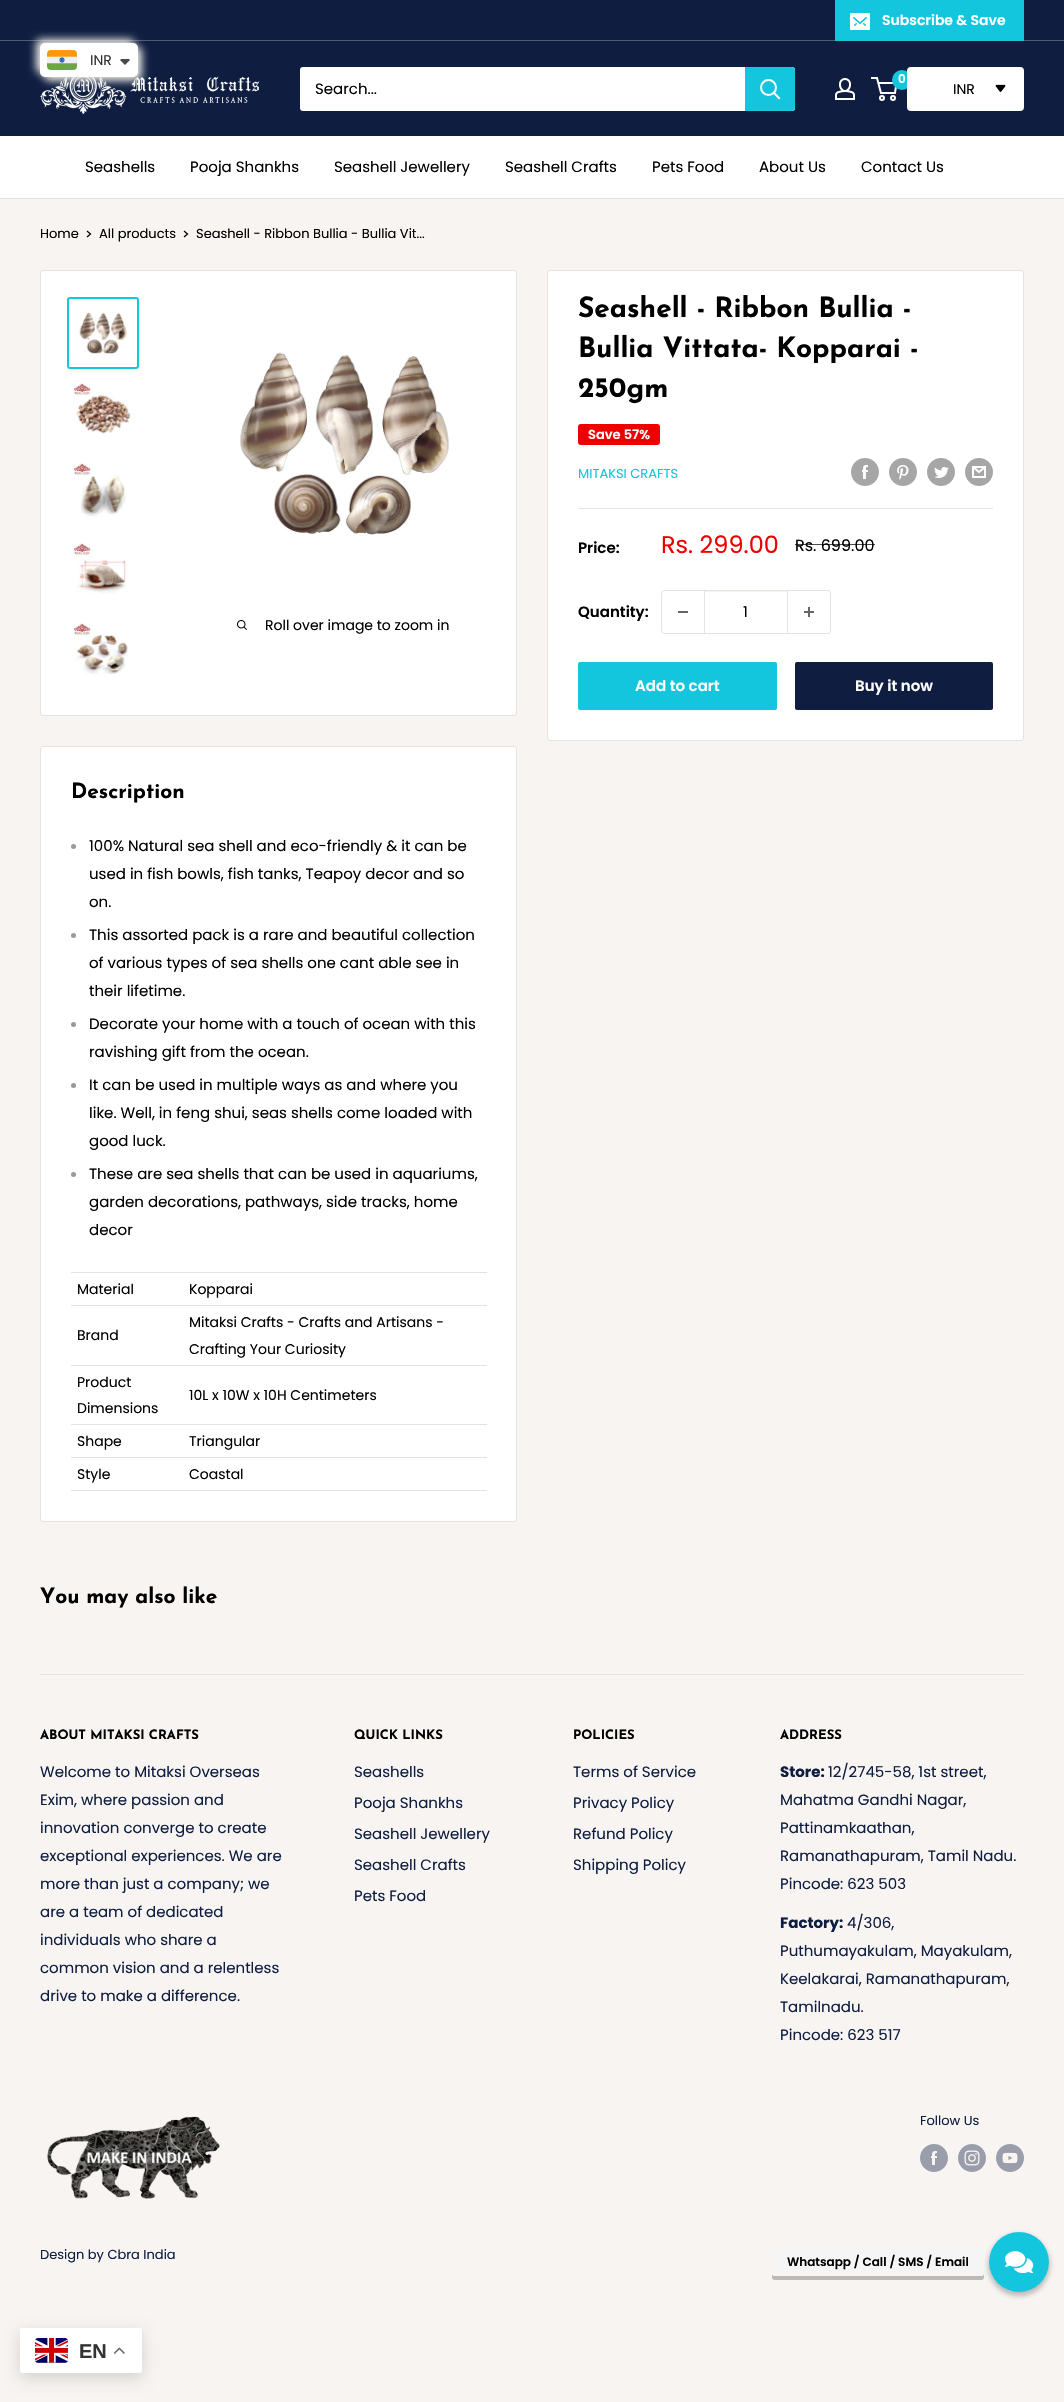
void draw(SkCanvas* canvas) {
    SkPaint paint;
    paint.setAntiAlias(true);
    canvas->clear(0xFFF7F4F2);
    paint.setColor(0xFF0E1D40);
    canvas->drawRect(SkRect::MakeXYWH(0, 0, 1064, 40), paint);
    paint.setColor(0xFF50586F);
    canvas->drawRect(SkRect::MakeXYWH(0, 40, 1064, 1), paint);
    paint.setColor(0xFF13C5DD);
    canvas->drawRect(SkRect::MakeXYWH(835, 0, 189, 41), paint);
    canvas->drawImageRect(SkImages::DeferredFromEncodedData(SkData::MakeFromFileName("img1.png")), SkRect::MakeXYWH(850, 13, 20, 17), SkSamplingOptions());
    SkFont font1(fontMgr->matchFamilyStyle("Poppins", SkFontStyle(600, SkFontStyle::kNormal_Width, SkFontStyle::kUpright_Slant)), 14);
    font1.setSubpixel(true);
    paint.setColor(0xFFFFFFFF);
    canvas->drawString("Subscribe & Save", 882, 25, font1, paint);
    paint.setColor(0xFF0E1D40);
    canvas->drawRect(SkRect::MakeXYWH(0, 41, 1064, 95), paint);
    canvas->drawImageRect(SkImages::DeferredFromEncodedData(SkData::MakeFromFileName("img3.png")), SkRect::MakeXYWH(40, 76, 220, 38), SkSamplingOptions());
    paint.setColor(0xFFE8E8E2);
    paint.setMaskFilter(SkMaskFilter::MakeBlur(kNormal_SkBlurStyle, 4.5f));
    canvas->drawRoundRect(SkRect::MakeXYWH(36, 39, 98, 34), 5, 5, paint);
    paint.setMaskFilter(nullptr);
    paint.setMaskFilter(SkMaskFilter::MakeBlur(kNormal_SkBlurStyle, 4.5f));
    canvas->drawRoundRect(SkRect::MakeXYWH(44, 47, 98, 34), 5, 5, paint);
    paint.setMaskFilter(nullptr);
    paint.setColor(0xFFFFFFFF);
    canvas->drawRoundRect(SkRect::MakeXYWH(40, 43, 98, 34), 5, 5, paint);
    canvas->drawImageRect(SkImages::DeferredFromEncodedData(SkData::MakeFromFileName("img2.png")), SkRect::MakeXYWH(47, 50, 30, 20), SkSamplingOptions());
    SkFont font2(fontMgr->matchFamilyStyle("Poppins", SkFontStyle::Normal()), 14);
    font2.setSubpixel(true);
    paint.setColor(0xFF333333);
    canvas->drawString("INR", 90, 65, font2, paint);
    paint.setColor(0xFF474942);
    canvas->drawPath(SkPathBuilder().moveTo(122, 59).cubicTo(121, 59, 120.5f, 59.5f, 120, 60).lineTo(125, 65).lineTo(130, 60).lineTo(129, 59).close().detach(), paint);
    paint.setColor(0xFFFFFFFF);
    canvas->drawRoundRect(SkRect::MakeXYWH(300, 67, 495, 44), 3, 3, paint);
    SkFont font3(fontMgr->matchFamilyStyle("Poppins", SkFontStyle::Normal()), 15);
    font3.setSubpixel(true);
    paint.setColor(0xFF000000);
    canvas->drawString("Search...", 315, 94, font3, paint);
    paint.setColor(0xFF13C5DD);
    canvas->drawPath(SkPathBuilder().moveTo(745, 67).lineTo(792, 67).cubicTo(793.5f, 67, 795, 68.5f, 795, 70).lineTo(795, 108).cubicTo(795, 109.5f, 793.5f, 111, 792, 111).lineTo(745, 111).close().detach(), paint);
    paint.setStyle(SkPaint::kStroke_Style);
    paint.setStrokeWidth(2);
    paint.setStrokeCap(SkPaint::kSquare_Cap);
    paint.setColor(0xFFFFFFFF);
    canvas->drawPath(SkPathBuilder().moveTo(779, 98).lineTo(774, 93).detach(), paint);
    paint.setStrokeCap(SkPaint::kButt_Cap);
    canvas->drawCircle(768.5f, 87.5f, 7.5f, paint);
    canvas->drawImageRect(SkImages::DeferredFromEncodedData(SkData::MakeFromFileName("img4.png")), SkRect::MakeXYWH(835, 78, 20, 22), SkSamplingOptions());
    canvas->drawCircle(882, 98, 2, paint);
    canvas->drawCircle(893, 98, 2, paint);
    canvas->drawPath(SkPathBuilder().moveTo(878.5f, 83).lineTo(896.5f, 83).lineTo(895, 93).lineTo(881, 93).lineTo(877, 78).lineTo(871, 78).detach(), paint);
    paint.setStyle(SkPaint::kFill_Style);
    paint.setColor(0xFF13C5DD);
    canvas->drawCircle(902, 80, 10, paint);
    SkFont font4(fontMgr->matchFamilyStyle("Poppins", SkFontStyle(600, SkFontStyle::kNormal_Width, SkFontStyle::kUpright_Slant)), 12);
    font4.setSubpixel(true);
    paint.setColor(0xFFFFFFFF);
    canvas->drawString("0", 898, 83, font4, paint);
    canvas->drawRoundRect(SkRect::MakeXYWH(907, 67, 117, 44), 4, 4, paint);
    paint.setColor(0xFF000000);
    canvas->drawString("INR", 953, 94, font2, paint);
    canvas->drawImageRect(SkImages::DeferredFromEncodedData(SkData::MakeFromFileName("img5.png")), SkRect::MakeXYWH(995, 84, 11, 8), SkSamplingOptions());
    paint.setColor(0xFFFFFFFF);
    canvas->drawRect(SkRect::MakeXYWH(0, 136, 1064, 62), paint);
    paint.setColor(0xFFE7E2DE);
    canvas->drawRect(SkRect::MakeXYWH(0, 198, 1064, 1), paint);
    paint.setColor(0xFF000000);
    canvas->drawString("Seashells", 85, 172, font3, paint);
    canvas->drawString("Pooja Shankhs", 190, 172, font3, paint);
    canvas->drawString("Seashell Jewellery", 334, 172, font3, paint);
    canvas->drawString("Seashell Crafts", 505, 172, font3, paint);
    canvas->drawString("Pets Food", 652, 172, font3, paint);
    canvas->drawString("About Us", 759, 172, font3, paint);
    canvas->drawString("Contact Us", 861, 172, font3, paint);
    SkFont font5(fontMgr->matchFamilyStyle("Poppins", SkFontStyle::Normal()), 13);
    font5.setSubpixel(true);
    canvas->drawString("Home", 40, 238, font5, paint);
    paint.setStyle(SkPaint::kStroke_Style);
    paint.setStrokeWidth(1.3f);
    paint.setStrokeCap(SkPaint::kSquare_Cap);
    canvas->drawPath(SkPathBuilder().moveTo(87.5f, 231.5f).lineTo(90.5f, 234).lineTo(87.5f, 236.5f).detach(), paint);
    paint.setStyle(SkPaint::kFill_Style);
    canvas->drawString("All products", 99, 238, font5, paint);
    paint.setStyle(SkPaint::kStroke_Style);
    canvas->drawPath(SkPathBuilder().moveTo(184.5f, 231.5f).lineTo(187.5f, 234).lineTo(184.5f, 236.5f).detach(), paint);
    paint.setStyle(SkPaint::kFill_Style);
    canvas->drawString("Seashell - Ribbon Bullia - Bullia Vit...", 196, 238, font5, paint);
    paint.setColor(0xFFFFFFFF);
    canvas->drawRoundRect(SkRect::MakeXYWH(40.5f, 270.5f, 476, 445), 2.5f, 2.5f, paint);
    paint.setStyle(SkPaint::kStroke_Style);
    paint.setStrokeWidth(1);
    paint.setStrokeCap(SkPaint::kButt_Cap);
    paint.setColor(0xFFE7E2DE);
    canvas->drawRoundRect(SkRect::MakeXYWH(40.5f, 270.5f, 476, 445), 2.5f, 2.5f, paint);
    paint.setStrokeWidth(2);
    paint.setColor(0xFF13C5DD);
    canvas->drawRoundRect(SkRect::MakeXYWH(68, 298, 70, 70), 2, 2, paint);
    canvas->drawImageRect(SkImages::DeferredFromEncodedData(SkData::MakeFromFileName("img6.png")), SkRect::MakeXYWH(79, 312, 48, 43), SkSamplingOptions());
    canvas->drawImageRect(SkImages::DeferredFromEncodedData(SkData::MakeFromFileName("img7.png")), SkRect::MakeXYWH(73, 383, 58, 51), SkSamplingOptions());
    canvas->drawImageRect(SkImages::DeferredFromEncodedData(SkData::MakeFromFileName("img8.png")), SkRect::MakeXYWH(73, 462, 53, 55), SkSamplingOptions());
    canvas->drawImageRect(SkImages::DeferredFromEncodedData(SkData::MakeFromFileName("img9.png")), SkRect::MakeXYWH(73, 542, 53, 52), SkSamplingOptions());
    canvas->drawImageRect(SkImages::DeferredFromEncodedData(SkData::MakeFromFileName("img10.png")), SkRect::MakeXYWH(71, 623, 57, 52), SkSamplingOptions());
    canvas->drawImageRect(SkImages::DeferredFromEncodedData(SkData::MakeFromFileName("img11.png")), SkRect::MakeXYWH(240, 352, 209, 183), SkSamplingOptions());
    canvas->drawImageRect(SkImages::DeferredFromEncodedData(SkData::MakeFromFileName("img12.png")), SkRect::MakeXYWH(237, 620, 10, 10), SkSamplingOptions());
    paint.setStyle(SkPaint::kFill_Style);
    paint.setColor(0xFF000000);
    canvas->drawString("Roll over image to zoom in", 265, 630, font2, paint);
    paint.setColor(0xFFFFFFFF);
    canvas->drawRoundRect(SkRect::MakeXYWH(547.5f, 270.5f, 476, 470), 2.5f, 2.5f, paint);
    paint.setStyle(SkPaint::kStroke_Style);
    paint.setStrokeWidth(1);
    paint.setColor(0xFFE7E2DE);
    canvas->drawRoundRect(SkRect::MakeXYWH(547.5f, 270.5f, 476, 470), 2.5f, 2.5f, paint);
    SkFont font6(fontMgr->matchFamilyStyle("Josefin Sans", SkFontStyle::Bold()), 28);
    font6.setSubpixel(true);
    paint.setStyle(SkPaint::kFill_Style);
    paint.setColor(0xFF000000);
    canvas->drawString("Seashell - Ribbon Bullia -", 578, 317, font6, paint);
    canvas->drawString("Bullia Vittata- Kopparai -", 578, 357, font6, paint);
    canvas->drawString("250gm", 578, 397, font6, paint);
    paint.setColor(0xFFEE0000);
    canvas->drawRoundRect(SkRect::MakeXYWH(578, 424, 82, 21), 3, 3, paint);
    SkFont font7(fontMgr->matchFamilyStyle("Poppins", SkFontStyle(600, SkFontStyle::kNormal_Width, SkFontStyle::kUpright_Slant)), 13);
    font7.setSubpixel(true);
    paint.setColor(0xFFFFFFFF);
    canvas->drawString("Save 57%", 588, 439, font7, paint);
    paint.setColor(0xFF13C5DD);
    canvas->drawString("MITAKSI CRAFTS", 578, 478, font5, paint);
    canvas->drawImageRect(SkImages::DeferredFromEncodedData(SkData::MakeFromFileName("img13.png")), SkRect::MakeXYWH(851, 458, 28, 28), SkSamplingOptions());
    canvas->drawImageRect(SkImages::DeferredFromEncodedData(SkData::MakeFromFileName("img14.png")), SkRect::MakeXYWH(889, 458, 28, 28), SkSamplingOptions());
    canvas->drawImageRect(SkImages::DeferredFromEncodedData(SkData::MakeFromFileName("img15.png")), SkRect::MakeXYWH(927, 458, 28, 28), SkSamplingOptions());
    canvas->drawImageRect(SkImages::DeferredFromEncodedData(SkData::MakeFromFileName("img16.png")), SkRect::MakeXYWH(965, 458, 28, 28), SkSamplingOptions());
    paint.setColor(0xFFE7E2DE);
    canvas->drawRect(SkRect::MakeXYWH(578, 508, 415, 1), paint);
    SkFont font8(fontMgr->matchFamilyStyle("Poppins", SkFontStyle(600, SkFontStyle::kNormal_Width, SkFontStyle::kUpright_Slant)), 15);
    font8.setSubpixel(true);
    paint.setColor(0xFF000000);
    canvas->drawString("Price:", 578, 553, font8, paint);
    SkFont font9(fontMgr->matchFamilyStyle("Poppins", SkFontStyle::Normal()), 24);
    font9.setSubpixel(true);
    paint.setColor(0xFFEE0000);
    canvas->drawString("Rs. 299.00", 661, 553, font9, paint);
    SkFont font10(fontMgr->matchFamilyStyle("Poppins", SkFontStyle::Normal()), 16);
    font10.setSubpixel(true);
    paint.setColor(0xFF000000);
    canvas->drawString("Rs. 699.00", 795, 551, font10, paint);
    paint.setColor(0xB3000000);
    canvas->drawRect(SkRect::MakeXYWH(795, 544, 80, 1), paint);
    paint.setColor(0xFF000000);
    canvas->drawString("Quantity:", 578, 617, font8, paint);
    paint.setStyle(SkPaint::kStroke_Style);
    paint.setColor(0xFFE7E2DE);
    canvas->drawRoundRect(SkRect::MakeXYWH(661.5f, 590.5f, 169, 43), 2.5f, 2.5f, paint);
    paint.setStyle(SkPaint::kFill_Style);
    paint.setColor(0xFF666666);
    canvas->drawRect(SkRect::MakeXYWH(678, 611, 10, 2), paint);
    paint.setColor(0xFFF5F3F2);
    canvas->drawRect(SkRect::MakeXYWH(705, 591, 82, 1), paint);
    paint.setColor(0xFFE7E2DE);
    canvas->drawRect(SkRect::MakeXYWH(787, 591, 1, 42), paint);
    canvas->drawRect(SkRect::MakeXYWH(704, 591, 1, 42), paint);
    paint.setColor(0xFF000000);
    canvas->drawString("1", 743, 617, font3, paint);
    canvas->drawImageRect(SkImages::DeferredFromEncodedData(SkData::MakeFromFileName("img17.png")), SkRect::MakeXYWH(804, 607, 10, 10), SkSamplingOptions());
    paint.setColor(0xFF13C5DD);
    canvas->drawRoundRect(SkRect::MakeXYWH(578, 662, 199, 48), 2, 2, paint);
    paint.setColor(0xFFFFFFFF);
    canvas->drawString("Add to cart", 635, 691, font8, paint);
    paint.setColor(0xFF0E1D40);
    canvas->drawRoundRect(SkRect::MakeXYWH(795, 662, 198, 48), 2, 2, paint);
    paint.setColor(0xFFFFFFFF);
    canvas->drawString("Buy it now", 855, 691, font8, paint);
    canvas->drawRoundRect(SkRect::MakeXYWH(40.5f, 746.5f, 476, 775), 2.5f, 2.5f, paint);
    paint.setStyle(SkPaint::kStroke_Style);
    paint.setColor(0xFFE7E2DE);
    canvas->drawRoundRect(SkRect::MakeXYWH(40.5f, 746.5f, 476, 775), 2.5f, 2.5f, paint);
    SkFont font11(fontMgr->matchFamilyStyle("Josefin Sans", SkFontStyle::Bold()), 21);
    font11.setSubpixel(true);
    paint.setStyle(SkPaint::kFill_Style);
    paint.setColor(0xFF000000);
    canvas->drawString("Description", 71, 798, font11, paint);
    paint.setColor(0xFF999999);
    canvas->drawCircle(73.5f, 846.5f, 2.5f, paint);
    paint.setColor(0xFF000000);
    canvas->drawString("100% Natural sea shell and eco-friendly & it can be", 89, 851, font3, paint);
    canvas->drawString("used in fish bowls, fish tanks, Teapoy decor and so", 89, 879, font3, paint);
    canvas->drawString("on.", 89, 907, font3, paint);
    paint.setColor(0xFF999999);
    canvas->drawCircle(73.5f, 935.5f, 2.5f, paint);
    paint.setColor(0xFF000000);
    canvas->drawString("This assorted pack is a rare and beautiful collection", 89, 940, font3, paint);
    canvas->drawString("of various types of sea shells one cant able see in", 89, 968, font3, paint);
    canvas->drawString("their lifetime.", 89, 996, font3, paint);
    paint.setColor(0xFF999999);
    canvas->drawCircle(73.5f, 1024.5f, 2.5f, paint);
    paint.setColor(0xFF000000);
    canvas->drawString("Decorate your home with a touch of ocean with this", 89, 1029, font3, paint);
    canvas->drawString("ravishing gift from the ocean.", 89, 1057, font3, paint);
    paint.setColor(0xFF999999);
    canvas->drawCircle(73.5f, 1085.5f, 2.5f, paint);
    paint.setColor(0xFF000000);
    canvas->drawString("It can be used in multiple ways as and where you", 89, 1090, font3, paint);
    canvas->drawString("like. Well, in feng shui, seas shells come loaded with", 89, 1118, font3, paint);
    canvas->drawString("good luck.", 89, 1146, font3, paint);
    paint.setColor(0xFF999999);
    canvas->drawCircle(73.5f, 1174.5f, 2.5f, paint);
    paint.setColor(0xFF000000);
    canvas->drawString("These are sea shells that can be used in aquariums,", 89, 1179, font3, paint);
    canvas->drawString("garden decorations, pathways, side tracks, home", 89, 1207, font3, paint);
    canvas->drawString("decor", 89, 1235, font3, paint);
    paint.setColor(0xFFE7E2DE);
    canvas->drawRect(SkRect::MakeXYWH(71, 1272, 416, 1), paint);
    paint.setColor(0xFF000000);
    canvas->drawString("Material", 77, 1294, font2, paint);
    canvas->drawString("Kopparai", 189, 1294, font2, paint);
    paint.setColor(0xFFE7E2DE);
    canvas->drawRect(SkRect::MakeXYWH(71, 1305, 416, 1), paint);
    paint.setColor(0xFF000000);
    canvas->drawString("Brand", 77, 1340, font2, paint);
    canvas->drawString("Mitaksi Crafts - Crafts and Artisans -", 189, 1327, font2, paint);
    canvas->drawString("Crafting Your Curiosity", 189, 1354, font2, paint);
    paint.setColor(0xFFE7E2DE);
    canvas->drawRect(SkRect::MakeXYWH(71, 1365, 416, 1), paint);
    paint.setColor(0xFF000000);
    canvas->drawString("Product", 77, 1387, font2, paint);
    canvas->drawString("Dimensions", 77, 1413, font2, paint);
    canvas->drawString("10L x 10W x 10H Centimeters", 189, 1400, font2, paint);
    paint.setColor(0xFFE7E2DE);
    canvas->drawRect(SkRect::MakeXYWH(71, 1424, 416, 1), paint);
    paint.setColor(0xFF000000);
    canvas->drawString("Shape", 77, 1446, font2, paint);
    canvas->drawString("Triangular", 189, 1446, font2, paint);
    paint.setColor(0xFFE7E2DE);
    canvas->drawRect(SkRect::MakeXYWH(71, 1457, 416, 1), paint);
    canvas->drawRect(SkRect::MakeXYWH(71, 1490, 416, 1), paint);
    paint.setColor(0xFF000000);
    canvas->drawString("Style", 77, 1479, font2, paint);
    canvas->drawString("Coastal", 189, 1479, font2, paint);
    canvas->drawString("You may also like", 40, 1603, font11, paint);
    paint.setColor(0xFFE7E2DE);
    canvas->drawRect(SkRect::MakeXYWH(40, 1674, 984, 1), paint);
    SkFont font12(fontMgr->matchFamilyStyle("Josefin Sans", SkFontStyle::Bold()), 13);
    font12.setSubpixel(true);
    paint.setColor(0xFF000000);
    canvas->drawString("ABOUT MITAKSI CRAFTS", 40, 1739, font12, paint);
    paint.setColor(0xFF0E1D40);
    canvas->drawString("Welcome to Mitaksi Overseas", 40, 1777, font3, paint);
    canvas->drawString("Exim, where passion and", 40, 1805, font3, paint);
    canvas->drawString("innovation converge to create", 40, 1833, font3, paint);
    canvas->drawString("exceptional experiences. We are", 40, 1861, font3, paint);
    canvas->drawString("more than just a company; we", 40, 1889, font3, paint);
    canvas->drawString("are a team of dedicated", 40, 1917, font3, paint);
    canvas->drawString("individuals who share a", 40, 1945, font3, paint);
    canvas->drawString("common vision and a relentless", 40, 1973, font3, paint);
    canvas->drawString("drive to make a difference.", 40, 2001, font3, paint);
    paint.setColor(0xFF000000);
    canvas->drawString("QUICK LINKS", 354, 1739, font12, paint);
    paint.setColor(0xFF0E1D40);
    canvas->drawString("Seashells", 354, 1777, font3, paint);
    canvas->drawString("Pooja Shankhs", 354, 1808, font3, paint);
    canvas->drawString("Seashell Jewellery", 354, 1839, font3, paint);
    canvas->drawString("Seashell Crafts", 354, 1870, font3, paint);
    canvas->drawString("Pets Food", 354, 1901, font3, paint);
    paint.setColor(0xFF000000);
    canvas->drawString("POLICIES", 573, 1739, font12, paint);
    paint.setColor(0xFF0E1D40);
    canvas->drawString("Terms of Service", 573, 1777, font3, paint);
    canvas->drawString("Privacy Policy", 573, 1808, font3, paint);
    canvas->drawString("Refund Policy", 573, 1839, font3, paint);
    canvas->drawString("Shipping Policy", 573, 1870, font3, paint);
    paint.setColor(0xFF000000);
    canvas->drawString("ADDRESS", 780, 1739, font12, paint);
    SkFont font13(fontMgr->matchFamilyStyle("Poppins", SkFontStyle::Bold()), 15);
    font13.setSubpixel(true);
    paint.setColor(0xFF0E1D40);
    canvas->drawString("Store:", 780, 1777, font13, paint);
    canvas->drawString("12/2745-58, 1st street,", 828, 1777, font3, paint);
    canvas->drawString("Mahatma Gandhi Nagar,", 780, 1805, font3, paint);
    canvas->drawString("Pattinamkaathan,", 780, 1833, font3, paint);
    canvas->drawString("Ramanathapuram, Tamil Nadu.", 780, 1861, font3, paint);
    canvas->drawString("Pincode: 623 503", 780, 1889, font3, paint);
    canvas->drawString("Factory:", 780, 1928, font13, paint);
    canvas->drawString("4/306,", 847, 1928, font3, paint);
    canvas->drawString("Puthumayakulam, Mayakulam,", 780, 1956, font3, paint);
    canvas->drawString("Keelakarai, Ramanathapuram,", 780, 1984, font3, paint);
    canvas->drawString("Tamilnadu.", 780, 2012, font3, paint);
    canvas->drawString("Pincode: 623 517", 780, 2040, font3, paint);
    canvas->drawImageRect(SkImages::DeferredFromEncodedData(SkData::MakeFromFileName("img18.png")), SkRect::MakeXYWH(47, 2116, 173, 83), SkSamplingOptions());
    canvas->drawString("Follow Us", 920, 2125, font5, paint);
    canvas->drawImageRect(SkImages::DeferredFromEncodedData(SkData::MakeFromFileName("img19.png")), SkRect::MakeXYWH(920, 2144, 28, 28), SkSamplingOptions());
    canvas->drawImageRect(SkImages::DeferredFromEncodedData(SkData::MakeFromFileName("img20.png")), SkRect::MakeXYWH(958, 2144, 28, 28), SkSamplingOptions());
    canvas->drawImageRect(SkImages::DeferredFromEncodedData(SkData::MakeFromFileName("img21.png")), SkRect::MakeXYWH(996, 2144, 28, 28), SkSamplingOptions());
    canvas->drawString("Design by Cbra India", 40, 2259, font5, paint);
    paint.setColor(0xFF13C5DD);
    canvas->drawCircle(1019, 2262, 30, paint);
    paint.setColor(0xFFBCBAB9);
    canvas->drawPath(SkPathBuilder().moveTo(772, 2273).lineTo(772, 2277).cubicTo(772, 2279, 773, 2280, 775, 2280).lineTo(981, 2280).cubicTo(983, 2280, 984, 2279, 984, 2277).lineTo(984, 2273).cubicTo(984, 2275, 983, 2276, 981, 2276).lineTo(775, 2276).cubicTo(773, 2276, 772, 2275, 772, 2273).close().detach(), paint);
    paint.setColor(0xFFF5F5F5);
    canvas->drawRoundRect(SkRect::MakeXYWH(772, 2248, 212, 28), 3, 3, paint);
    paint.setColor(0xFF000000);
    canvas->drawString("Whatsapp / Call / SMS / Email", 787, 2266, font4, paint);
    canvas->drawImageRect(SkImages::DeferredFromEncodedData(SkData::MakeFromFileName("img22.png")), SkRect::MakeXYWH(1005, 2251, 29, 23), SkSamplingOptions());
    canvas->save();
    canvas->clipPath(SkPathBuilder(SkPathFillType::kEvenOdd).moveTo(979, 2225).lineTo(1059, 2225).lineTo(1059, 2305).lineTo(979, 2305).close().moveTo(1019, 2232).cubicTo(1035.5f, 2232, 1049, 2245.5f, 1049, 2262).cubicTo(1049, 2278.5f, 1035.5f, 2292, 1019, 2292).cubicTo(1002.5f, 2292, 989, 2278.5f, 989, 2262).cubicTo(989, 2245.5f, 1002.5f, 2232, 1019, 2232).close().detach(), true);
    paint.setColor(0x4D333333);
    paint.setMaskFilter(SkMaskFilter::MakeBlur(kNormal_SkBlurStyle, 2.5f));
    canvas->drawRoundRect(SkRect::MakeXYWH(988, 2234, 62, 62), 31, 31, paint);
    paint.setMaskFilter(nullptr);
    canvas->restore();
    paint.setColor(0x26000000);
    paint.setMaskFilter(SkMaskFilter::MakeBlur(kNormal_SkBlurStyle, 7.5f));
    canvas->drawRoundRect(SkRect::MakeXYWH(20, 2333, 122, 45), 2, 2, paint);
    paint.setMaskFilter(nullptr);
    paint.setColor(0xFFFFFFFF);
    canvas->drawRoundRect(SkRect::MakeXYWH(20, 2328, 122, 45), 2, 2, paint);
    canvas->drawImageRect(SkImages::DeferredFromEncodedData(SkData::MakeFromFileName("img23.png")), SkRect::MakeXYWH(35, 2338, 33, 25), SkSamplingOptions());
    SkFont font14(fontMgr->matchFamilyStyle("Liberation Sans", SkFontStyle::Bold()), 20);
    font14.setSubpixel(true);
    paint.setColor(0xFF333333);
    canvas->drawString("EN", 79, 2358, font14, paint);
    canvas->drawImageRect(SkImages::DeferredFromEncodedData(SkData::MakeFromFileName("img24.png")), SkRect::MakeXYWH(114, 2347, 11, 7), SkSamplingOptions());
}
